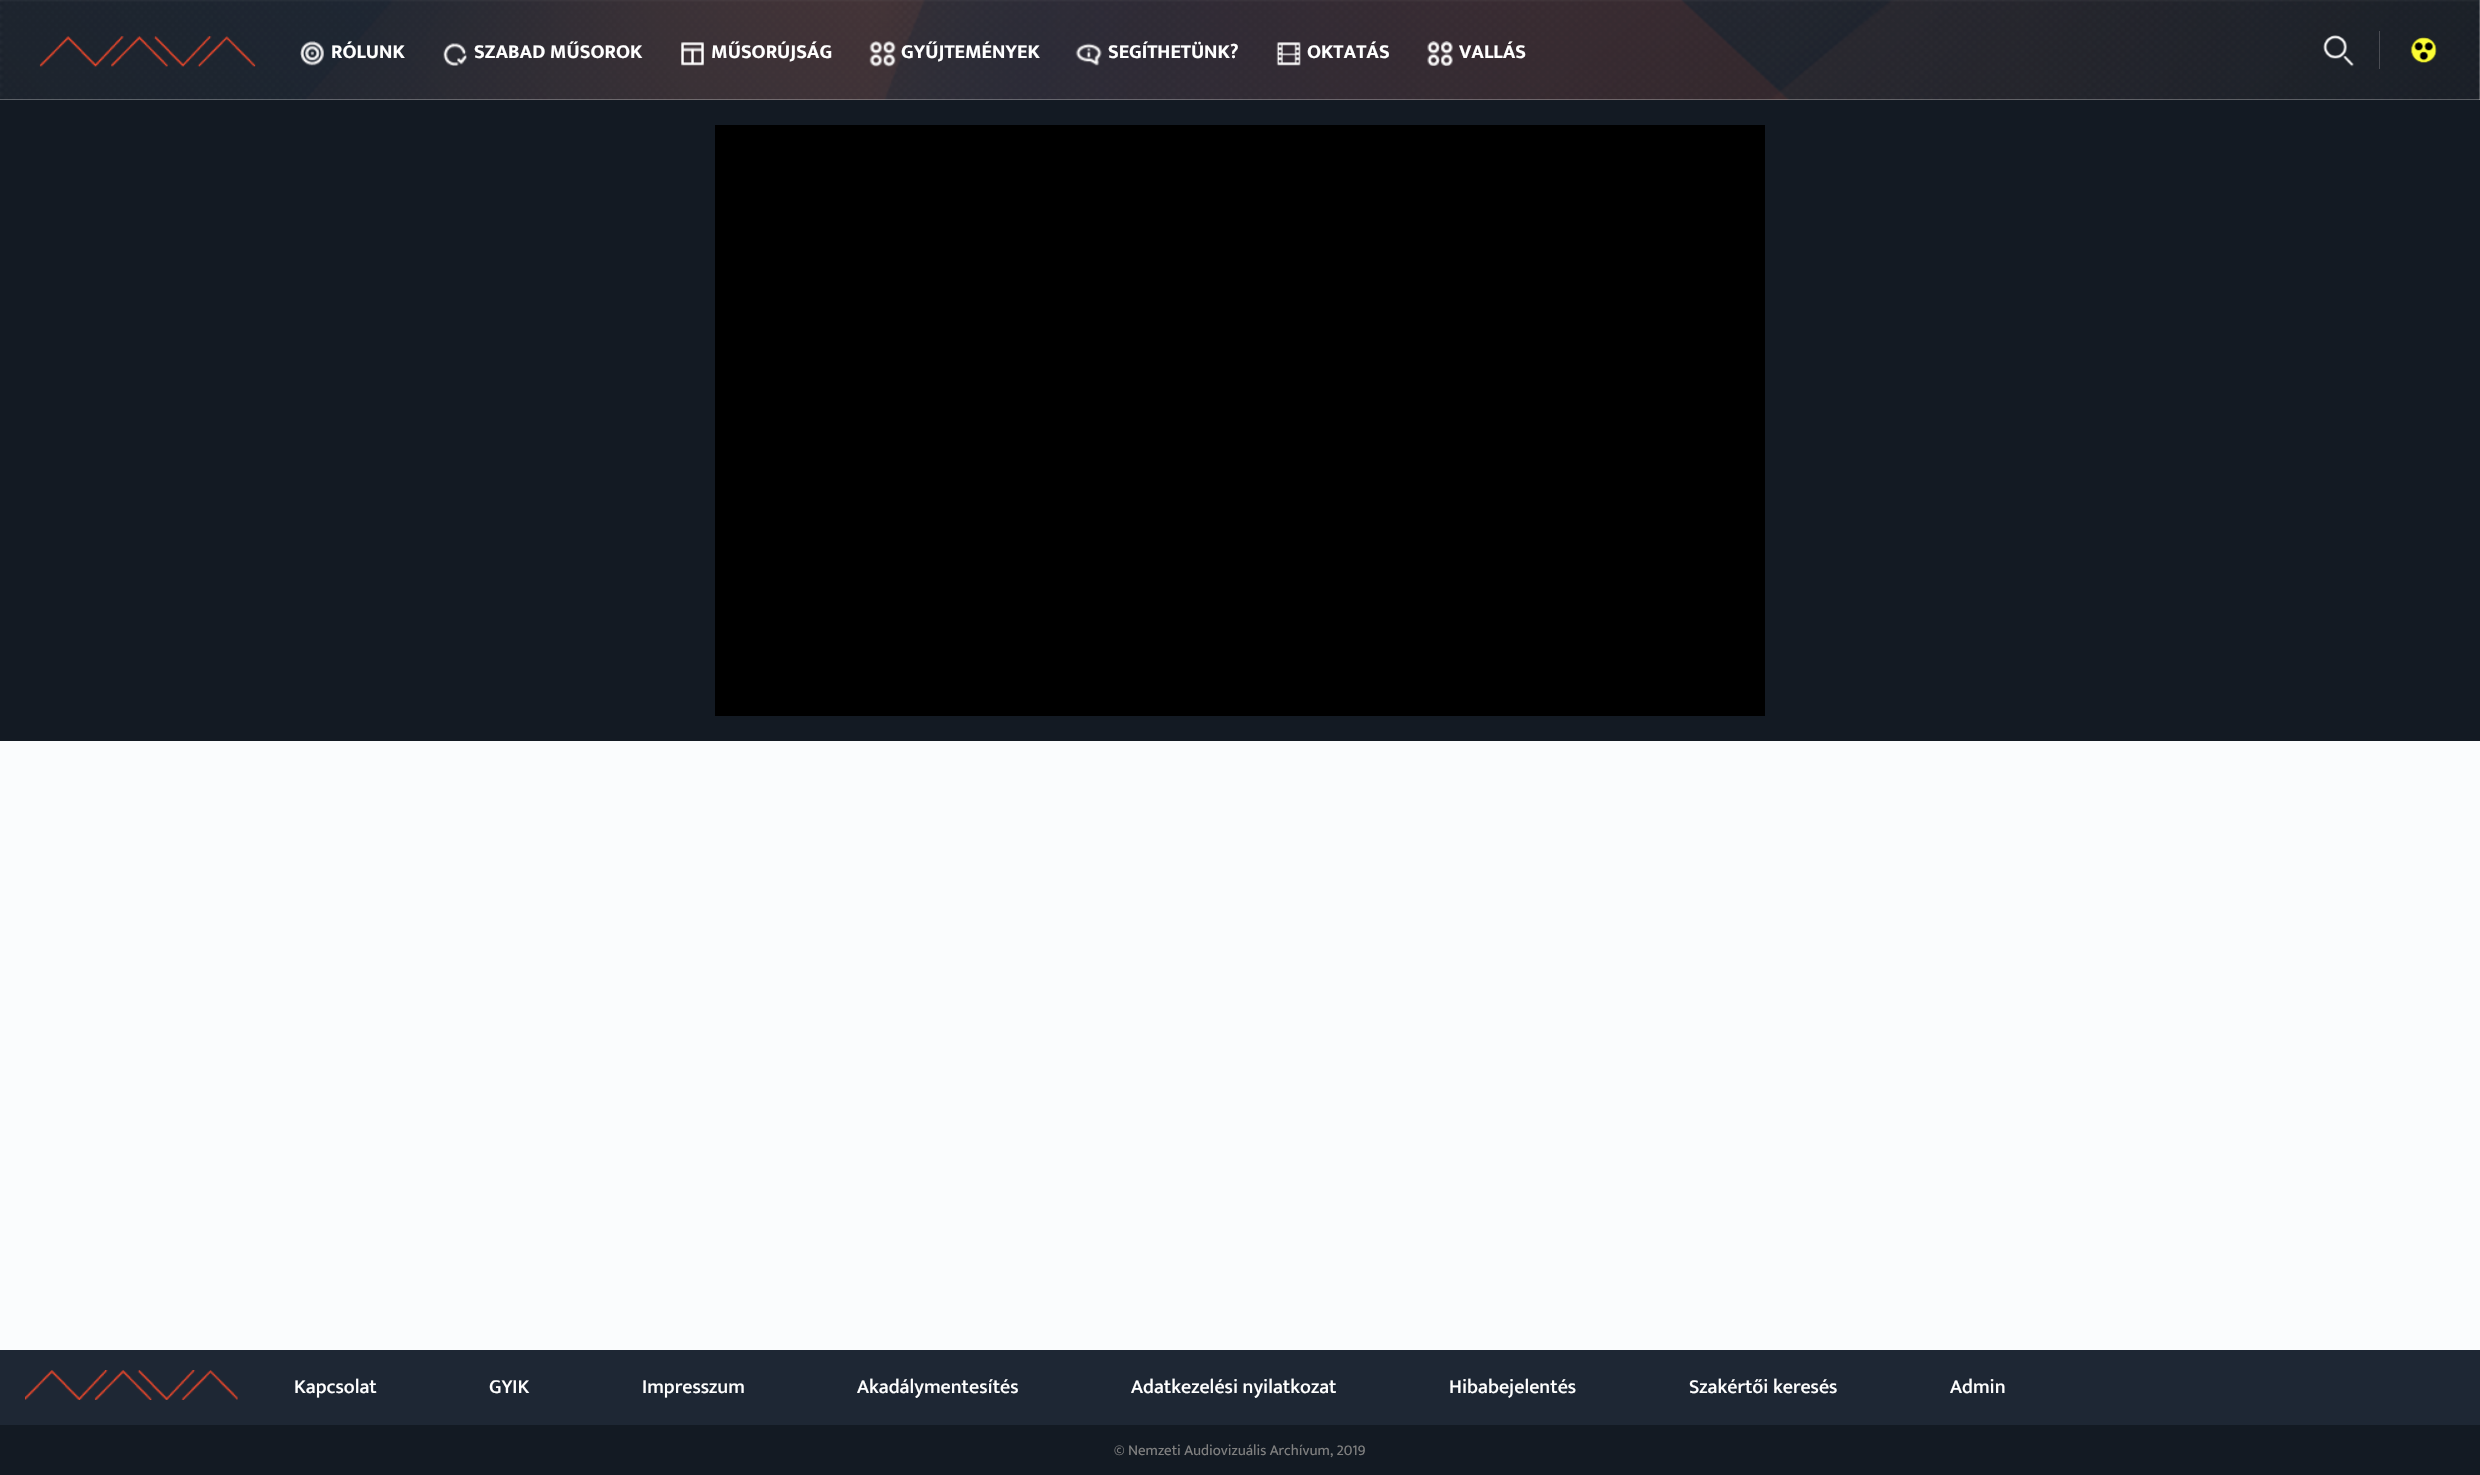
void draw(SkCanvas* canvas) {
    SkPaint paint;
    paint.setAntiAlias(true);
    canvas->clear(0xFFFAFCFD);
    paint.setColor(0xFFFAFAFA);
    canvas->drawRect(SkRect::MakeXYWH(0, 0, 2480, 100), paint);
    canvas->drawImageRect(SkImages::DeferredFromEncodedData(SkData::MakeFromFileName("img1.png")), SkRect::MakeXYWH(0, 0, 2480, 100), SkSamplingOptions());
    canvas->drawImageRect(SkImages::DeferredFromEncodedData(SkData::MakeFromFileName("img2.png")), SkRect::MakeXYWH(39, 36, 217, 31), SkSamplingOptions());
    canvas->drawImageRect(SkImages::DeferredFromEncodedData(SkData::MakeFromFileName("img3.png")), SkRect::MakeXYWH(300, 41, 24, 25), SkSamplingOptions());
    SkFont font1(fontMgr->matchFamilyStyle("Ek Mukta", SkFontStyle::Bold()), 20);
    font1.setSubpixel(true);
    paint.setColor(0xFFFFFFFF);
    canvas->drawString("RÓLUNK", 331, 58, font1, paint);
    canvas->drawImageRect(SkImages::DeferredFromEncodedData(SkData::MakeFromFileName("img4.png")), SkRect::MakeXYWH(443, 43, 24, 23), SkSamplingOptions());
    canvas->drawString("SZABAD MŰSOROK", 474, 58, font1, paint);
    canvas->drawImageRect(SkImages::DeferredFromEncodedData(SkData::MakeFromFileName("img5.png")), SkRect::MakeXYWH(681, 42, 23, 24), SkSamplingOptions());
    canvas->drawString("MŰSORÚJSÁG", 711, 58, font1, paint);
    canvas->drawImageRect(SkImages::DeferredFromEncodedData(SkData::MakeFromFileName("img6.png")), SkRect::MakeXYWH(869, 41, 27, 26), SkSamplingOptions());
    canvas->drawString("GYŰJTEMÉNYEK", 901, 58, font1, paint);
    canvas->drawImageRect(SkImages::DeferredFromEncodedData(SkData::MakeFromFileName("img7.png")), SkRect::MakeXYWH(1075, 43, 27, 23), SkSamplingOptions());
    canvas->drawString("SEGÍTHETÜNK?", 1108, 58, font1, paint);
    canvas->drawImageRect(SkImages::DeferredFromEncodedData(SkData::MakeFromFileName("img8.png")), SkRect::MakeXYWH(1276, 42, 25, 24), SkSamplingOptions());
    canvas->drawString("OKTATÁS", 1307, 58, font1, paint);
    canvas->drawImageRect(SkImages::DeferredFromEncodedData(SkData::MakeFromFileName("img9.png")), SkRect::MakeXYWH(1427, 41, 26, 25), SkSamplingOptions());
    canvas->drawString("VALLÁS", 1459, 58, font1, paint);
    paint.setColor(0xFF4A4D54);
    canvas->drawRect(SkRect::MakeXYWH(2379, 31, 1, 38), paint);
    canvas->drawImageRect(SkImages::DeferredFromEncodedData(SkData::MakeFromFileName("img10.png")), SkRect::MakeXYWH(2323, 35, 31, 32), SkSamplingOptions());
    canvas->drawImageRect(SkImages::DeferredFromEncodedData(SkData::MakeFromFileName("img11.png")), SkRect::MakeXYWH(2410, 37, 27, 26), SkSamplingOptions());
    paint.setColor(0xFF131A23);
    canvas->drawRect(SkRect::MakeXYWH(0, 100, 2480, 641), paint);
    paint.setColor(0xFF000000);
    canvas->drawRect(SkRect::MakeXYWH(715, 125, 1050, 591), paint);
    paint.setColor(0xFF1E2734);
    canvas->drawRect(SkRect::MakeXYWH(0, 1350, 2480, 75), paint);
    canvas->drawImageRect(SkImages::DeferredFromEncodedData(SkData::MakeFromFileName("img12.png")), SkRect::MakeXYWH(25, 1370, 213, 30), SkSamplingOptions());
    SkFont font2(fontMgr->matchFamilyStyle("Ek Mukta", SkFontStyle(500, SkFontStyle::kNormal_Width, SkFontStyle::kUpright_Slant)), 20);
    font2.setSubpixel(true);
    paint.setColor(0xFFFFFFFF);
    canvas->drawString("Kapcsolat", 294, 1393, font2, paint);
    canvas->drawString("GYIK", 489, 1393, font2, paint);
    canvas->drawString("Impresszum", 642, 1393, font2, paint);
    canvas->drawString("Akadálymentesítés", 857, 1393, font2, paint);
    canvas->drawString("Adatkezelési nyilatkozat", 1131, 1393, font2, paint);
    canvas->drawString("Hibabejelentés", 1449, 1393, font2, paint);
    canvas->drawString("Szakértői keresés", 1689, 1393, font2, paint);
    canvas->drawString("Admin", 1950, 1393, font2, paint);
    paint.setColor(0xFF131A23);
    canvas->drawRect(SkRect::MakeXYWH(0, 1425, 2480, 50), paint);
    SkFont font3(fontMgr->matchFamilyStyle("Ek Mukta", SkFontStyle::Normal()), 15);
    font3.setSubpixel(true);
    paint.setColor(0xFF808080);
    canvas->drawString("© Nemzeti Audiovizuális Archívum, 2019", 1114, 1455, font3, paint);
}
